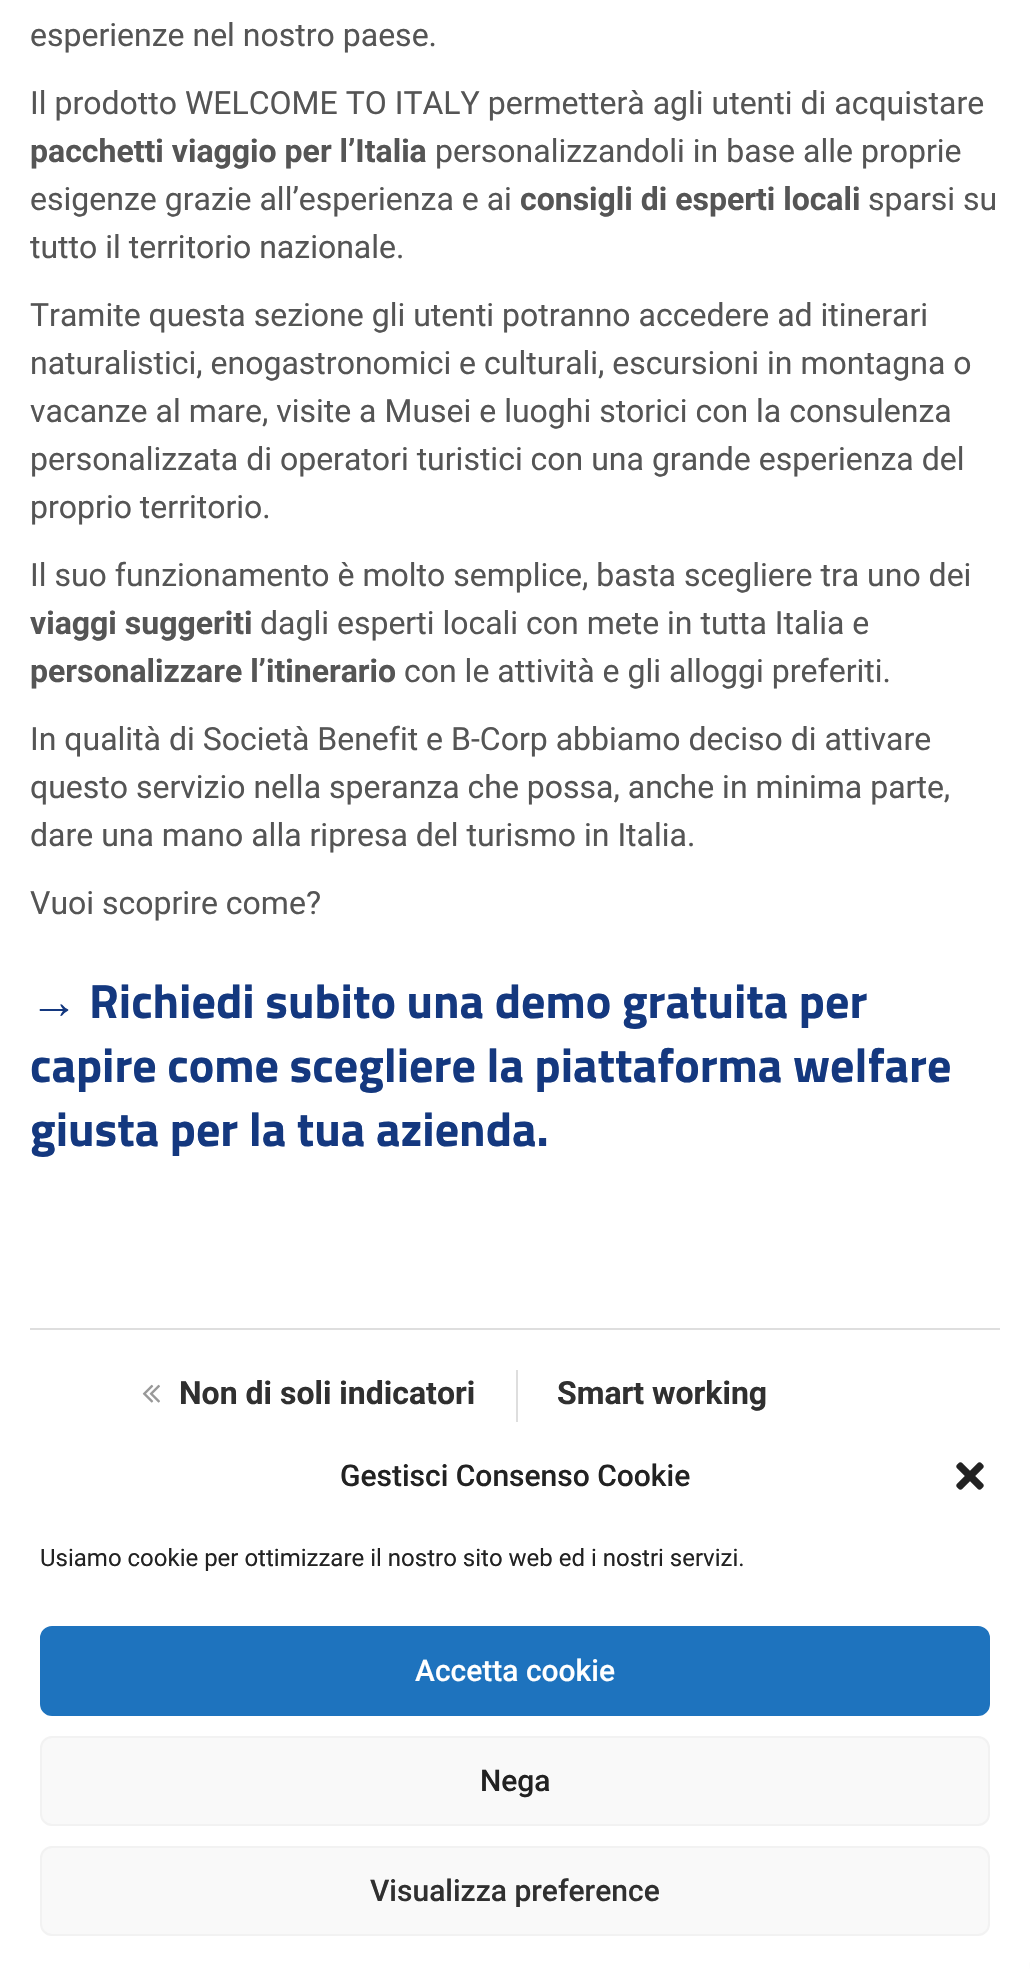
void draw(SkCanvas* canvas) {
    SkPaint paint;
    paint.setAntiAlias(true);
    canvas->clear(0xFFFFFFFF);
    SkFont font1(fontMgr->matchFamilyStyle("Roboto", SkFontStyle::Normal()), 32);
    font1.setSubpixel(true);
    paint.setColor(0xFF555555);
    canvas->drawString("esperienze nel nostro paese.", 30, 46, font1, paint);
    canvas->drawString("Il prodotto WELCOME TO ITALY permetterà agli utenti di acquistare", 30, 114, font1, paint);
    SkFont font2(fontMgr->matchFamilyStyle("Roboto", SkFontStyle::Bold()), 32);
    font2.setSubpixel(true);
    canvas->drawString("pacchetti viaggio per l’Italia", 30, 162, font2, paint);
    canvas->drawString("personalizzandoli in base alle proprie", 435, 162, font1, paint);
    canvas->drawString("esigenze grazie all’esperienza e ai", 30, 210, font1, paint);
    canvas->drawString("consigli di esperti locali", 520, 210, font2, paint);
    canvas->drawString("sparsi su", 868, 210, font1, paint);
    canvas->drawString("tutto il territorio nazionale.", 30, 258, font1, paint);
    canvas->drawString("Tramite questa sezione gli utenti potranno accedere ad itinerari", 30, 326, font1, paint);
    canvas->drawString("naturalistici, enogastronomici e culturali, escursioni in montagna o", 30, 374, font1, paint);
    canvas->drawString("vacanze al mare, visite a Musei e luoghi storici con la consulenza", 30, 422, font1, paint);
    canvas->drawString("personalizzata di operatori turistici con una grande esperienza del", 30, 470, font1, paint);
    canvas->drawString("proprio territorio.", 30, 518, font1, paint);
    canvas->drawString("Il suo funzionamento è molto semplice, basta scegliere tra uno dei", 30, 586, font1, paint);
    canvas->drawString("viaggi suggeriti", 30, 634, font2, paint);
    canvas->drawString("dagli esperti locali con mete in tutta Italia e", 260, 634, font1, paint);
    canvas->drawString("personalizzare l’itinerario", 30, 682, font2, paint);
    canvas->drawString("con le attività e gli alloggi preferiti.", 404, 682, font1, paint);
    canvas->drawString("In qualità di Società Benefit e B-Corp abbiamo deciso di attivare", 30, 750, font1, paint);
    canvas->drawString("questo servizio nella speranza che possa, anche in minima parte,", 30, 798, font1, paint);
    canvas->drawString("dare una mano alla ripresa del turismo in Italia.", 30, 846, font1, paint);
    canvas->drawString("Vuoi scoprire come?", 30, 914, font1, paint);
    SkFont font3(fontMgr->matchFamilyStyle("Liberation Serif", SkFontStyle::Bold()), 48);
    font3.setSubpixel(true);
    paint.setColor(0xFF14387F);
    canvas->drawString("→", 30, 1018, font3, paint);
    SkFont font4(fontMgr->matchFamilyStyle("Titillium Web", SkFontStyle::Bold()), 48);
    font4.setSubpixel(true);
    canvas->drawString("Richiedi subito una demo gratuita per", 89, 1018, font4, paint);
    canvas->drawString("capire come scegliere la piattaforma welfare", 30, 1082, font4, paint);
    canvas->drawString("giusta per la tua azienda.", 30, 1146, font4, paint);
    paint.setColor(0xFFDEDEDE);
    canvas->drawRect(SkRect::MakeXYWH(30, 1328, 970, 2), paint);
    canvas->drawImageRect(SkImages::DeferredFromEncodedData(SkData::MakeFromFileName("img1.png")), SkRect::MakeXYWH(142, 1384, 18, 19), SkSamplingOptions());
    paint.setColor(0xFF303030);
    canvas->drawString("Non di soli indicatori", 179, 1404, font2, paint);
    paint.setColor(0xFFDEDEDE);
    canvas->drawRect(SkRect::MakeXYWH(516, 1370, 2, 52), paint);
    paint.setColor(0xFF303030);
    canvas->drawString("Smart working", 557, 1404, font2, paint);
    paint.setColor(0xFF808080);
    paint.setMaskFilter(SkMaskFilter::MakeBlur(kNormal_SkBlurStyle, 5));
    canvas->drawRoundRect(SkRect::MakeXYWH(890, 1838, 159, 120), 4, 4, paint);
    paint.setMaskFilter(nullptr);
    paint.setColor(0xFFFFFFFF);
    canvas->drawRoundRect(SkRect::MakeXYWH(0, 1422, 1030, 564), 24, 24, paint);
    SkFont font5(fontMgr->matchFamilyStyle("Roboto", SkFontStyle(500, SkFontStyle::kNormal_Width, SkFontStyle::kUpright_Slant)), 30);
    font5.setSubpixel(true);
    paint.setColor(0xFF222222);
    canvas->drawString("Gestisci Consenso Cookie", 340, 1486, font5, paint);
    canvas->drawImageRect(SkImages::DeferredFromEncodedData(SkData::MakeFromFileName("img2.png")), SkRect::MakeXYWH(956, 1462, 28, 28), SkSamplingOptions());
    SkFont font6(fontMgr->matchFamilyStyle("Roboto", SkFontStyle::Normal()), 24);
    font6.setSubpixel(true);
    canvas->drawString("Usiamo cookie per ottimizzare il nostro sito web ed i nostri servizi.", 40, 1566, font6, paint);
    paint.setColor(0xFF1E73BE);
    canvas->drawRoundRect(SkRect::MakeXYWH(41, 1627, 948, 88), 11, 11, paint);
    paint.setStyle(SkPaint::kStroke_Style);
    paint.setStrokeWidth(2);
    canvas->drawRoundRect(SkRect::MakeXYWH(41, 1627, 948, 88), 11, 11, paint);
    paint.setStyle(SkPaint::kFill_Style);
    paint.setColor(0xFFFFFFFF);
    canvas->drawString("Accetta cookie", 415, 1681, font5, paint);
    paint.setColor(0xFFF9F9F9);
    canvas->drawRoundRect(SkRect::MakeXYWH(41, 1737, 948, 88), 11, 11, paint);
    paint.setStyle(SkPaint::kStroke_Style);
    paint.setColor(0xFFF2F2F2);
    canvas->drawRoundRect(SkRect::MakeXYWH(41, 1737, 948, 88), 11, 11, paint);
    paint.setStyle(SkPaint::kFill_Style);
    paint.setColor(0xFF222222);
    canvas->drawString("Nega", 480, 1791, font5, paint);
    paint.setColor(0xFFF9F9F9);
    canvas->drawRoundRect(SkRect::MakeXYWH(41, 1847, 948, 88), 11, 11, paint);
    paint.setStyle(SkPaint::kStroke_Style);
    paint.setColor(0xFFF2F2F2);
    canvas->drawRoundRect(SkRect::MakeXYWH(41, 1847, 948, 88), 11, 11, paint);
    paint.setStyle(SkPaint::kFill_Style);
    paint.setColor(0xFF303030);
    canvas->drawString("Visualizza preference", 370, 1901, font5, paint);
}
